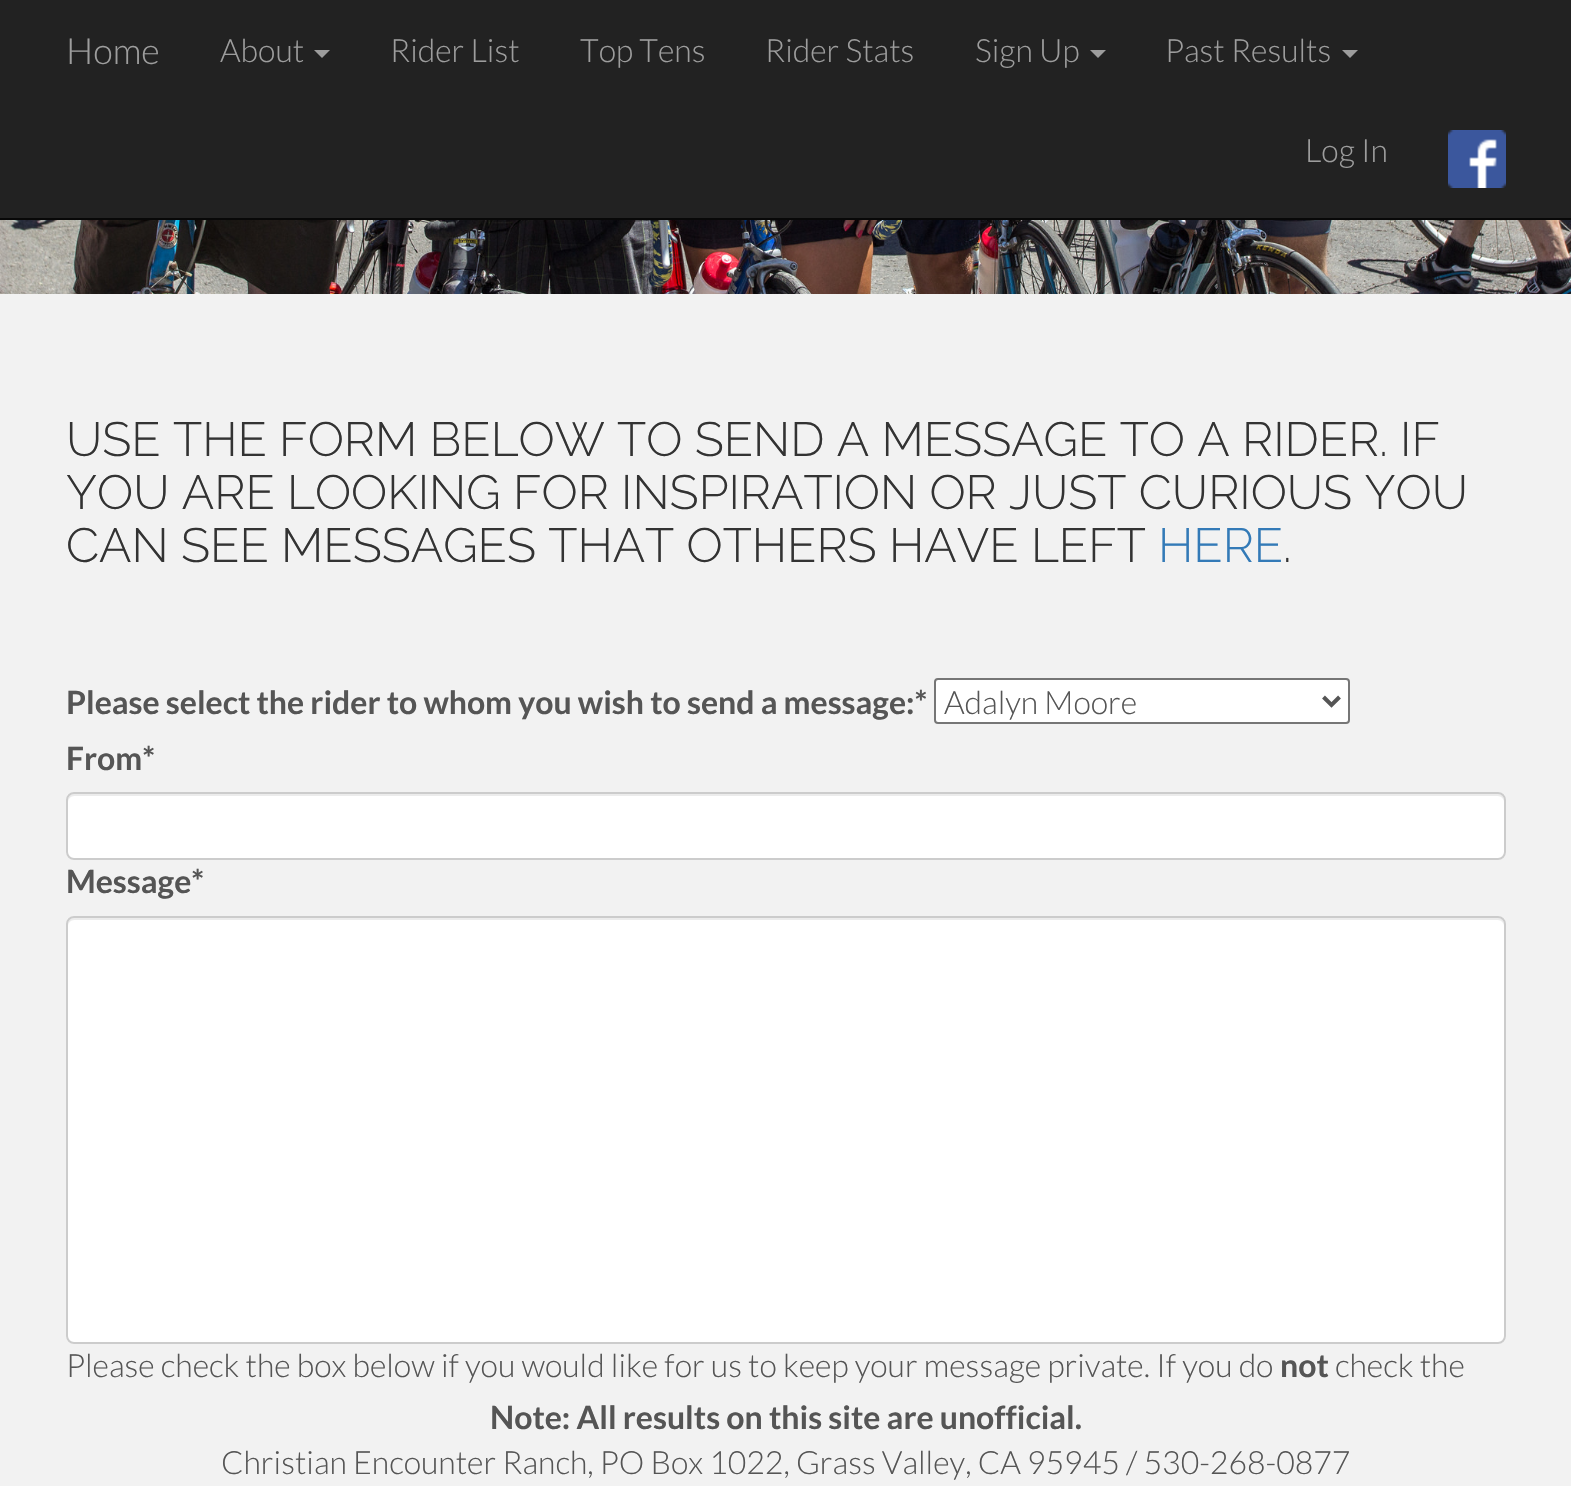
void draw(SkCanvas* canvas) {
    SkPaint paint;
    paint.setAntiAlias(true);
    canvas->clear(0xFFF2F2F2);
    paint.setColor(0xFF222222);
    canvas->drawRect(SkRect::MakeXYWH(0, 0, 1571, 218), paint);
    paint.setColor(0xFF080808);
    canvas->drawRect(SkRect::MakeXYWH(0, 218, 1571, 2), paint);
    SkFont font1(fontMgr->matchFamilyStyle("Lato", SkFontStyle(300, SkFontStyle::kNormal_Width, SkFontStyle::kUpright_Slant)), 36);
    font1.setSubpixel(true);
    paint.setColor(0xFF9D9D9D);
    canvas->drawString("Home", 66, 64, font1, paint);
    SkFont font2(fontMgr->matchFamilyStyle("Lato", SkFontStyle(300, SkFontStyle::kNormal_Width, SkFontStyle::kUpright_Slant)), 32);
    font2.setSubpixel(true);
    canvas->drawString("About", 220, 62, font2, paint);
    canvas->drawPath(SkPathBuilder().moveTo(314, 50).lineTo(330, 50).lineTo(322, 58).close().detach(), paint);
    canvas->drawString("Rider List", 390, 62, font2, paint);
    canvas->drawString("Top Tens", 580, 62, font2, paint);
    canvas->drawString("Rider Stats", 765, 62, font2, paint);
    canvas->drawString("Sign Up", 975, 62, font2, paint);
    canvas->drawPath(SkPathBuilder().moveTo(1090, 50).lineTo(1106, 50).lineTo(1098, 58).close().detach(), paint);
    canvas->drawString("Past Results", 1165, 62, font2, paint);
    canvas->drawPath(SkPathBuilder().moveTo(1342, 50).lineTo(1358, 50).lineTo(1350, 58).close().detach(), paint);
    canvas->drawString("Log In", 1305, 162, font2, paint);
    canvas->drawImageRect(SkImages::DeferredFromEncodedData(SkData::MakeFromFileName("img1.png")), SkRect::MakeXYWH(1448, 130, 58, 58), SkSamplingOptions());
    canvas->drawImageRect(SkImages::DeferredFromEncodedData(SkData::MakeFromFileName("img2.png")), SkRect::MakeXYWH(0, 220, 1571, 74), SkSamplingOptions());
    SkFont font3(fontMgr->matchFamilyStyle("Raleway", SkFontStyle(300, SkFontStyle::kNormal_Width, SkFontStyle::kUpright_Slant)), 48);
    font3.setSubpixel(true);
    paint.setColor(0xFF333333);
    canvas->drawString("USE THE FORM BELOW TO SEND A MESSAGE TO A RIDER. IF", 66, 456, font3, paint);
    canvas->drawString("YOU ARE LOOKING FOR INSPIRATION OR JUST CURIOUS YOU", 66, 509, font3, paint);
    canvas->drawString("CAN SEE MESSAGES THAT OTHERS HAVE LEFT", 66, 562, font3, paint);
    paint.setColor(0xFF337AB7);
    canvas->drawString("HERE", 1158, 562, font3, paint);
    paint.setColor(0xFF333333);
    canvas->drawString(".", 1283, 562, font3, paint);
    SkFont font4(fontMgr->matchFamilyStyle("Lato", SkFontStyle::Bold()), 32);
    font4.setSubpixel(true);
    paint.setColor(0xFF555555);
    canvas->drawString("Please select the rider to whom you wish to send a message:*", 66, 714, font4, paint);
    paint.setColor(0xFFFFFFFF);
    canvas->drawRoundRect(SkRect::MakeXYWH(935, 679, 414, 44), 3, 3, paint);
    paint.setStyle(SkPaint::kStroke_Style);
    paint.setStrokeWidth(2);
    paint.setColor(0xFF767676);
    canvas->drawRoundRect(SkRect::MakeXYWH(935, 679, 414, 44), 3, 3, paint);
    paint.setStrokeWidth(4);
    paint.setColor(0xFF555555);
    canvas->drawPath(SkPathBuilder().moveTo(1323.5f, 697).lineTo(1331.5f, 705).lineTo(1339.5f, 697).detach(), paint);
    paint.setStyle(SkPaint::kFill_Style);
    canvas->drawString("Adalyn Moore", 944, 714, font2, paint);
    canvas->drawString("From*", 66, 770, font4, paint);
    paint.setColor(0xFFFFFFFF);
    canvas->drawRoundRect(SkRect::MakeXYWH(66, 792, 1440, 68), 8, 8, paint);
    paint.setColor(0xFFECECEC);
    canvas->drawPath(SkPathBuilder().moveTo(74, 796).lineTo(1498, 796).cubicTo(1501, 796, 1504, 799, 1504, 802).cubicTo(1504, 798, 1503, 794, 1498, 794).lineTo(74, 794).cubicTo(69, 794, 68, 798, 68, 802).cubicTo(68, 799, 71, 796, 74, 796).close().detach(), paint);
    paint.setStyle(SkPaint::kStroke_Style);
    paint.setStrokeWidth(2);
    paint.setColor(0xFFCCCCCC);
    canvas->drawRoundRect(SkRect::MakeXYWH(67, 793, 1438, 66), 7, 7, paint);
    paint.setStyle(SkPaint::kFill_Style);
    paint.setColor(0xFF555555);
    canvas->drawString("Message*", 66, 893, font4, paint);
    paint.setColor(0xFFFFFFFF);
    canvas->drawRoundRect(SkRect::MakeXYWH(66, 916, 1440, 428), 8, 8, paint);
    paint.setColor(0xFFECECEC);
    canvas->drawPath(SkPathBuilder().moveTo(74, 920).lineTo(1498, 920).cubicTo(1501, 920, 1504, 923, 1504, 926).cubicTo(1504, 922, 1503, 918, 1498, 918).lineTo(74, 918).cubicTo(69, 918, 68, 922, 68, 926).cubicTo(68, 923, 71, 920, 74, 920).close().detach(), paint);
    paint.setStyle(SkPaint::kStroke_Style);
    paint.setColor(0xFFCCCCCC);
    canvas->drawRoundRect(SkRect::MakeXYWH(67, 917, 1438, 426), 7, 7, paint);
    paint.setStyle(SkPaint::kFill_Style);
    paint.setColor(0xFF555555);
    canvas->drawString("Please check the box below if you would like for us to keep your message private. If you do", 66, 1377, font2, paint);
    canvas->drawString("not", 1280, 1377, font4, paint);
    canvas->drawString("check the", 1335, 1377, font2, paint);
    canvas->drawString("Note: All results on this site are unofficial.", 490, 1429, font4, paint);
    canvas->drawString("Christian Encounter Ranch, PO Box 1022, Grass Valley, CA 95945 / 530-268-0877", 221, 1474, font2, paint);
}
